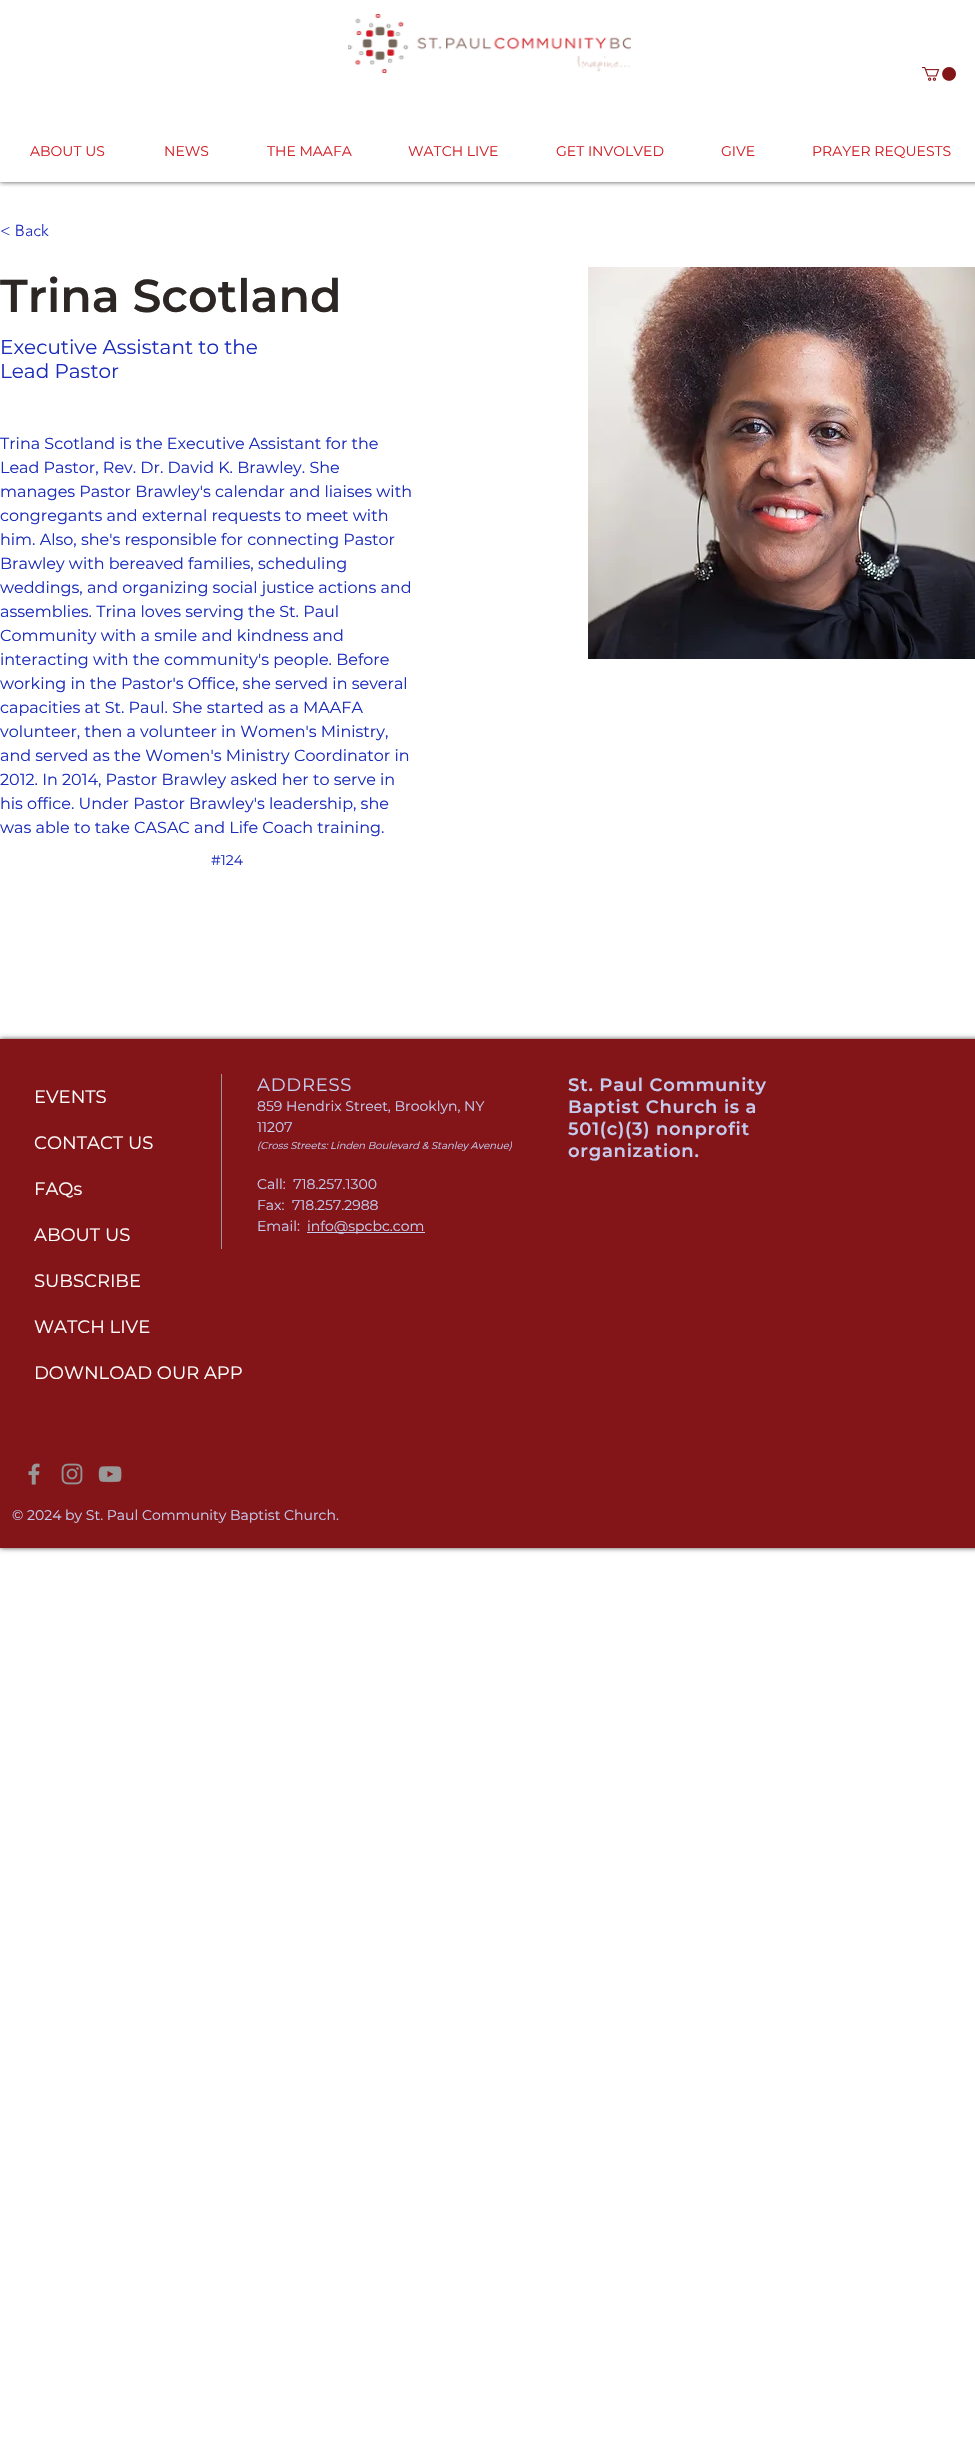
void draw(SkCanvas* canvas) {
    SkPaint paint;
    paint.setAntiAlias(true);
    auto spacedText = [&](const char* s, float x, float y, const SkFont& font, const SkPaint& ink, float letter, float word) {
        std::vector<SkGlyphID> glyphs(font.countText(s, strlen(s), SkTextEncoding::kUTF8));
        std::vector<float> xs(glyphs.size());
        font.textToGlyphs(s, strlen(s), SkTextEncoding::kUTF8, glyphs);
        font.getXPos(glyphs, xs, x);
        float extra = 0;
        for (size_t i = 0; i < glyphs.size(); i++) {
            xs[i] += extra;
            extra += letter + word * (glyphs[i] == font.unicharToGlyph(' '));
        }
        canvas->drawTextBlob(SkTextBlob::MakeFromPosHGlyphs(glyphs, xs, y, font), 0, 0, ink);
    };
    canvas->clear(0xFFFFFFFF);
    canvas->save();
    canvas->clipRect(SkRect::MakeXYWH(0, 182, 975, 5));
    paint.setColor(0xB3000000);
    paint.setMaskFilter(SkMaskFilter::MakeBlur(kNormal_SkBlurStyle, 2.5f));
    canvas->drawRect(SkRect::MakeXYWH(0, 0, 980, 182), paint);
    paint.setMaskFilter(nullptr);
    canvas->restore();
    canvas->drawImageRect(SkImages::DeferredFromEncodedData(SkData::MakeFromFileName("img1.png")), SkRect::MakeXYWH(348, 14, 283, 59), SkSamplingOptions());
    canvas->drawImageRect(SkImages::DeferredFromEncodedData(SkData::MakeFromFileName("img2.png")), SkRect::MakeXYWH(922, 67, 34, 14), SkSamplingOptions());
    SkFont font1(fontMgr->matchFamilyStyle("Montserrat", SkFontStyle::Normal()), 14);
    font1.setSubpixel(true);
    paint.setColor(0xFFD22027);
    canvas->drawString("ABOUT US", 30, 156, font1, paint);
    canvas->drawString("NEWS", 164, 156, font1, paint);
    canvas->drawString("THE MAAFA", 267, 156, font1, paint);
    canvas->drawString("WATCH LIVE", 408, 156, font1, paint);
    canvas->drawString("GET INVOLVED", 556, 156, font1, paint);
    canvas->drawString("GIVE", 721, 156, font1, paint);
    canvas->drawString("PRAYER REQUESTS", 812, 156, font1, paint);
    SkFont font2(fontMgr->matchFamilyStyle("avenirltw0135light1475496", SkFontStyle(300, SkFontStyle::kNormal_Width, SkFontStyle::kUpright_Slant)), 16);
    font2.setSubpixel(true);
    paint.setColor(0xFF1C2DBB);
    canvas->drawString("< Back", 0, 236, font2, paint);
    SkFont font3(fontMgr->matchFamilyStyle("Montserrat", SkFontStyle(600, SkFontStyle::kNormal_Width, SkFontStyle::kUpright_Slant)), 46);
    font3.setSubpixel(true);
    paint.setColor(0xFF2C2725);
    canvas->drawString("Trina Scotland", 0, 312, font3, paint);
    SkFont font4(fontMgr->matchFamilyStyle("Montserrat", SkFontStyle::Normal()), 20);
    font4.setSubpixel(true);
    paint.setColor(0xFF1C2DBB);
    canvas->drawString("Executive Assistant to the", 0, 354, font4, paint);
    canvas->drawString("Lead Pastor", 0, 378, font4, paint);
    SkFont font5(fontMgr->matchFamilyStyle("Montserrat", SkFontStyle::Normal()), 16);
    font5.setSubpixel(true);
    canvas->drawString("Trina Scotland is the Executive Assistant for the", 0, 449, font5, paint);
    canvas->drawString("Lead Pastor, Rev. Dr. David K. Brawley. She", 0, 473, font5, paint);
    canvas->drawString("manages Pastor Brawley's calendar and liaises with", 0, 497, font5, paint);
    canvas->drawString("congregants and external requests to meet with", 0, 521, font5, paint);
    canvas->drawString("him. Also, she's responsible for connecting Pastor", 0, 545, font5, paint);
    canvas->drawString("Brawley with bereaved families, scheduling", 0, 569, font5, paint);
    canvas->drawString("weddings, and organizing social justice actions and", 0, 593, font5, paint);
    canvas->drawString("assemblies. Trina loves serving the St. Paul", 0, 617, font5, paint);
    canvas->drawString("Community with a smile and kindness and", 0, 641, font5, paint);
    canvas->drawString("interacting with the community's people. Before", 0, 665, font5, paint);
    canvas->drawString("working in the Pastor's Office, she served in several", 0, 689, font5, paint);
    canvas->drawString("capacities at St. Paul. She started as a MAAFA", 0, 713, font5, paint);
    canvas->drawString("volunteer, then a volunteer in Women's Ministry,", 0, 737, font5, paint);
    canvas->drawString("and served as the Women's Ministry Coordinator in", 0, 761, font5, paint);
    canvas->drawString("2012. In 2014, Pastor Brawley asked her to serve in", 0, 785, font5, paint);
    canvas->drawString("his office. Under Pastor Brawley's leadership, she", 0, 809, font5, paint);
    canvas->drawString("was able to take CASAC and Life Coach training.", 0, 833, font5, paint);
    canvas->drawString("#124", 211, 865, font1, paint);
    canvas->drawImageRect(SkImages::DeferredFromEncodedData(SkData::MakeFromFileName("img3.png")), SkRect::MakeXYWH(588, 267, 387, 392), SkSamplingOptions());
    paint.setColor(0xB3000000);
    paint.setMaskFilter(SkMaskFilter::MakeBlur(kNormal_SkBlurStyle, 2.5f));
    canvas->drawRect(SkRect::MakeXYWH(0, 1039, 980, 509), paint);
    paint.setMaskFilter(nullptr);
    paint.setColor(0xFF831519);
    canvas->drawRect(SkRect::MakeXYWH(0, 1039, 975, 509), paint);
    paint.setColor(0xFF999999);
    canvas->drawRect(SkRect::MakeXYWH(221, 1074, 1, 175), paint);
    SkFont font6(fontMgr->matchFamilyStyle("Montserrat", SkFontStyle::Normal()), 18);
    font6.setSubpixel(true);
    paint.setColor(0xFFC6CBEE);
    spacedText("ADDRESS", 257, 1091, font6, paint, 0.75f, 0);
    canvas->drawString("859 Hendrix Street, Brooklyn, NY", 257, 1111, font1, paint);
    canvas->drawString("11207", 257, 1132, font1, paint);
    SkFont font7(fontMgr->matchFamilyStyle("Montserrat", SkFontStyle::Italic()), 10);
    font7.setSubpixel(true);
    canvas->drawString("(Cross Streets: Linden Boulevard & Stanley Avenue)", 257, 1149, font7, paint);
    canvas->drawString("Call:  718.257.1300", 257, 1189, font1, paint);
    canvas->drawString("Fax:  718.257.2988", 257, 1210, font1, paint);
    canvas->drawString("Email:", 257, 1231, font1, paint);
    canvas->drawRect(SkRect::MakeXYWH(307, 1232, 118, 1), paint);
    canvas->drawString("info@spcbc.com", 307, 1231, font1, paint);
    SkFont font8(fontMgr->matchFamilyStyle("Montserrat", SkFontStyle(600, SkFontStyle::kNormal_Width, SkFontStyle::kUpright_Slant)), 18);
    font8.setSubpixel(true);
    spacedText("St. Paul Community", 568, 1091, font8, paint, 0.75f, 0);
    spacedText("Baptist Church is a", 568, 1113, font8, paint, 0.75f, 0);
    spacedText("501(c)(3) nonprofit", 568, 1135, font8, paint, 0.75f, 0);
    spacedText("organization.", 568, 1157, font8, paint, 0.75f, 0);
    paint.setColor(0xFFFFFFFF);
    canvas->drawString("EVENTS", 34, 1103, font6, paint);
    canvas->drawString("CONTACT US", 34, 1149, font6, paint);
    canvas->drawString("FAQs", 34, 1195, font6, paint);
    canvas->drawString("ABOUT US", 34, 1241, font6, paint);
    canvas->drawString("SUBSCRIBE", 34, 1287, font6, paint);
    canvas->drawString("WATCH LIVE", 34, 1333, font6, paint);
    canvas->drawString("DOWNLOAD OUR APP", 34, 1379, font6, paint);
    canvas->drawImageRect(SkImages::DeferredFromEncodedData(SkData::MakeFromFileName("img4.png")), SkRect::MakeXYWH(28, 1463, 12, 22), SkSamplingOptions());
    canvas->drawImageRect(SkImages::DeferredFromEncodedData(SkData::MakeFromFileName("img5.png")), SkRect::MakeXYWH(61, 1463, 22, 22), SkSamplingOptions());
    canvas->drawImageRect(SkImages::DeferredFromEncodedData(SkData::MakeFromFileName("img6.png")), SkRect::MakeXYWH(98, 1466, 24, 17), SkSamplingOptions());
    paint.setColor(0xFFC6CBEE);
    canvas->drawString("© 2024 by St. Paul Community Baptist Church.", 12, 1520, font1, paint);
}
